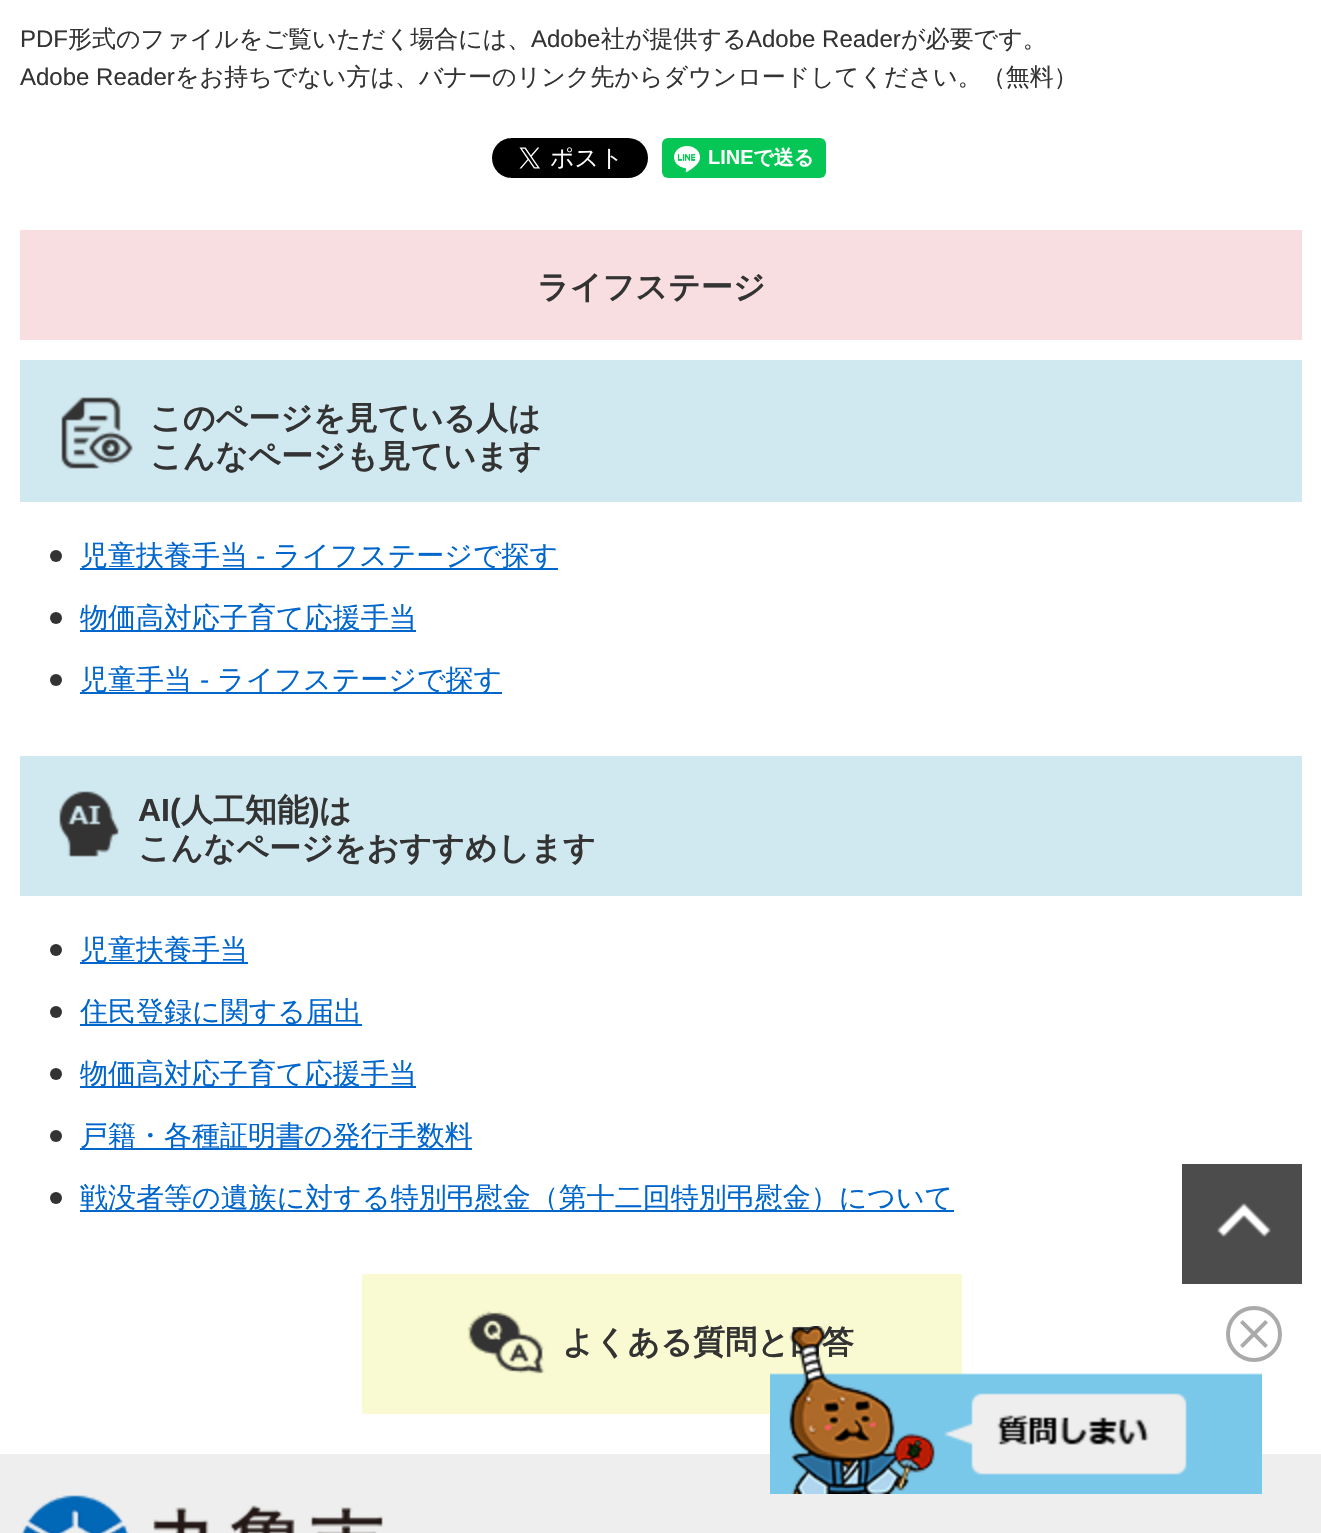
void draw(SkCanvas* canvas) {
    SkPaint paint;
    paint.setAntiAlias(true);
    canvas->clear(0xFFFFFFFF);
    SkFont font1(fontMgr->matchFamilyStyle("Liberation Sans", SkFontStyle::Normal()), 24);
    font1.setSubpixel(true);
    paint.setColor(0xFF333333);
    canvas->drawString("PDF", 20, 47, font1, paint);
    SkFont font2(fontMgr->matchFamilyStyle("WenQuanYi Zen Hei", SkFontStyle(500, SkFontStyle::kNormal_Width, SkFontStyle::kUpright_Slant)), 24);
    font2.setSubpixel(true);
    canvas->drawString("形式のファイルをご覧いただく場合には、", 68, 47, font2, paint);
    canvas->drawString("Adobe", 531, 47, font1, paint);
    canvas->drawString("社が提供する", 601, 47, font2, paint);
    canvas->drawString("Adobe Reader", 746, 47, font1, paint);
    canvas->drawString("が必要です。", 901, 47, font2, paint);
    canvas->drawString("Adobe Reader", 20, 85, font1, paint);
    canvas->drawString("をお持ちでない方は、バナーのリンク先からダウンロードしてください。（無料）", 175, 85, font2, paint);
    canvas->drawImageRect(SkImages::DeferredFromEncodedData(SkData::MakeFromFileName("img1.png")), SkRect::MakeXYWH(492, 138, 156, 40), SkSamplingOptions());
    canvas->drawImageRect(SkImages::DeferredFromEncodedData(SkData::MakeFromFileName("img2.png")), SkRect::MakeXYWH(662, 138, 164, 40), SkSamplingOptions());
    paint.setColor(0xFFF8DDE1);
    canvas->drawRect(SkRect::MakeXYWH(20, 230, 1282, 110), paint);
    SkFont font3(fontMgr->matchFamilyStyle("WenQuanYi Zen Hei", SkFontStyle::Bold()), 32);
    font3.setSubpixel(true);
    paint.setColor(0xFF333333);
    canvas->drawString("ライフステージ", 537, 298, font3, paint);
    paint.setColor(0xFFD0E9F0);
    canvas->drawRect(SkRect::MakeXYWH(20, 360, 1282, 142), paint);
    canvas->drawImageRect(SkImages::DeferredFromEncodedData(SkData::MakeFromFileName("img3.png")), SkRect::MakeXYWH(61, 397, 72, 72), SkSamplingOptions());
    paint.setColor(0xFF333333);
    canvas->drawString("このページを見ている人は", 150, 429, font3, paint);
    canvas->drawString("こんなページも見ています", 150, 467, font3, paint);
    canvas->drawCircle(56, 556, 6, paint);
    paint.setColor(0xFF0066CC);
    canvas->drawRect(SkRect::MakeXYWH(80, 568, 478, 2), paint);
    SkFont font4(fontMgr->matchFamilyStyle("WenQuanYi Zen Hei", SkFontStyle(500, SkFontStyle::kNormal_Width, SkFontStyle::kUpright_Slant)), 28);
    font4.setSubpixel(true);
    canvas->drawString("児童扶養手当", 80, 565, font4, paint);
    SkFont font5(fontMgr->matchFamilyStyle("Liberation Sans", SkFontStyle::Normal()), 28);
    font5.setSubpixel(true);
    canvas->drawString("-", 256, 565, font5, paint);
    canvas->drawString("ライフステージで探す", 273, 565, font4, paint);
    paint.setColor(0xFF333333);
    canvas->drawCircle(56, 618, 6, paint);
    paint.setColor(0xFF0066CC);
    canvas->drawRect(SkRect::MakeXYWH(80, 630, 336, 2), paint);
    canvas->drawString("物価高対応子育て応援手当", 80, 627, font4, paint);
    paint.setColor(0xFF333333);
    canvas->drawCircle(56, 680, 6, paint);
    paint.setColor(0xFF0066CC);
    canvas->drawRect(SkRect::MakeXYWH(80, 692, 422, 2), paint);
    canvas->drawString("児童手当", 80, 689, font4, paint);
    canvas->drawString("-", 200, 689, font5, paint);
    canvas->drawString("ライフステージで探す", 217, 689, font4, paint);
    paint.setColor(0xFFD0E9F0);
    canvas->drawRect(SkRect::MakeXYWH(20, 756, 1282, 140), paint);
    canvas->drawImageRect(SkImages::DeferredFromEncodedData(SkData::MakeFromFileName("img4.png")), SkRect::MakeXYWH(59, 791, 60, 66), SkSamplingOptions());
    SkFont font6(fontMgr->matchFamilyStyle("Liberation Sans", SkFontStyle::Bold()), 32);
    font6.setSubpixel(true);
    paint.setColor(0xFF333333);
    canvas->drawString("AI(", 138, 821, font6, paint);
    canvas->drawString("人工知能", 181, 821, font3, paint);
    canvas->drawString(")", 309, 821, font6, paint);
    canvas->drawString("は", 319, 821, font3, paint);
    canvas->drawString("こんなページをおすすめします", 138, 859, font3, paint);
    canvas->drawCircle(56, 950, 6, paint);
    paint.setColor(0xFF0066CC);
    canvas->drawRect(SkRect::MakeXYWH(80, 962, 168, 2), paint);
    canvas->drawString("児童扶養手当", 80, 959, font4, paint);
    paint.setColor(0xFF333333);
    canvas->drawCircle(56, 1012, 6, paint);
    paint.setColor(0xFF0066CC);
    canvas->drawRect(SkRect::MakeXYWH(80, 1024, 282, 2), paint);
    canvas->drawString("住民登録に関する届出", 80, 1021, font4, paint);
    paint.setColor(0xFF333333);
    canvas->drawCircle(56, 1074, 6, paint);
    paint.setColor(0xFF0066CC);
    canvas->drawRect(SkRect::MakeXYWH(80, 1086, 336, 2), paint);
    canvas->drawString("物価高対応子育て応援手当", 80, 1083, font4, paint);
    paint.setColor(0xFF333333);
    canvas->drawCircle(56, 1136, 6, paint);
    paint.setColor(0xFF0066CC);
    canvas->drawRect(SkRect::MakeXYWH(80, 1148, 392, 2), paint);
    canvas->drawString("戸籍・各種証明書の発行手数料", 80, 1145, font4, paint);
    paint.setColor(0xFF333333);
    canvas->drawCircle(56, 1198, 6, paint);
    paint.setColor(0xFF0066CC);
    canvas->drawRect(SkRect::MakeXYWH(80, 1210, 874, 2), paint);
    canvas->drawString("戦没者等の遺族に対する特別弔慰金（第十二回特別弔慰金）について", 80, 1207, font4, paint);
    paint.setColor(0xFFFAFAD2);
    canvas->drawRect(SkRect::MakeXYWH(362, 1274, 600, 140), paint);
    canvas->drawImageRect(SkImages::DeferredFromEncodedData(SkData::MakeFromFileName("img5.png")), SkRect::MakeXYWH(467, 1311, 78, 63), SkSamplingOptions());
    paint.setColor(0xFF333333);
    canvas->drawString("よくある質問と回答", 562, 1353, font3, paint);
    canvas->drawImageRect(SkImages::DeferredFromEncodedData(SkData::MakeFromFileName("img6.png")), SkRect::MakeXYWH(1182, 1164, 120, 120), SkSamplingOptions());
    paint.setColor(0xFFEEEEEE);
    canvas->drawRect(SkRect::MakeXYWH(0, 1454, 1321, 79), paint);
    canvas->drawImageRect(SkImages::DeferredFromEncodedData(SkData::MakeFromFileName("img7.png")), SkRect::MakeXYWH(21, 1495, 362, 38), SkSamplingOptions());
    canvas->drawImageRect(SkImages::DeferredFromEncodedData(SkData::MakeFromFileName("img8.png")), SkRect::MakeXYWH(770, 1306, 512, 188), SkSamplingOptions());
}
